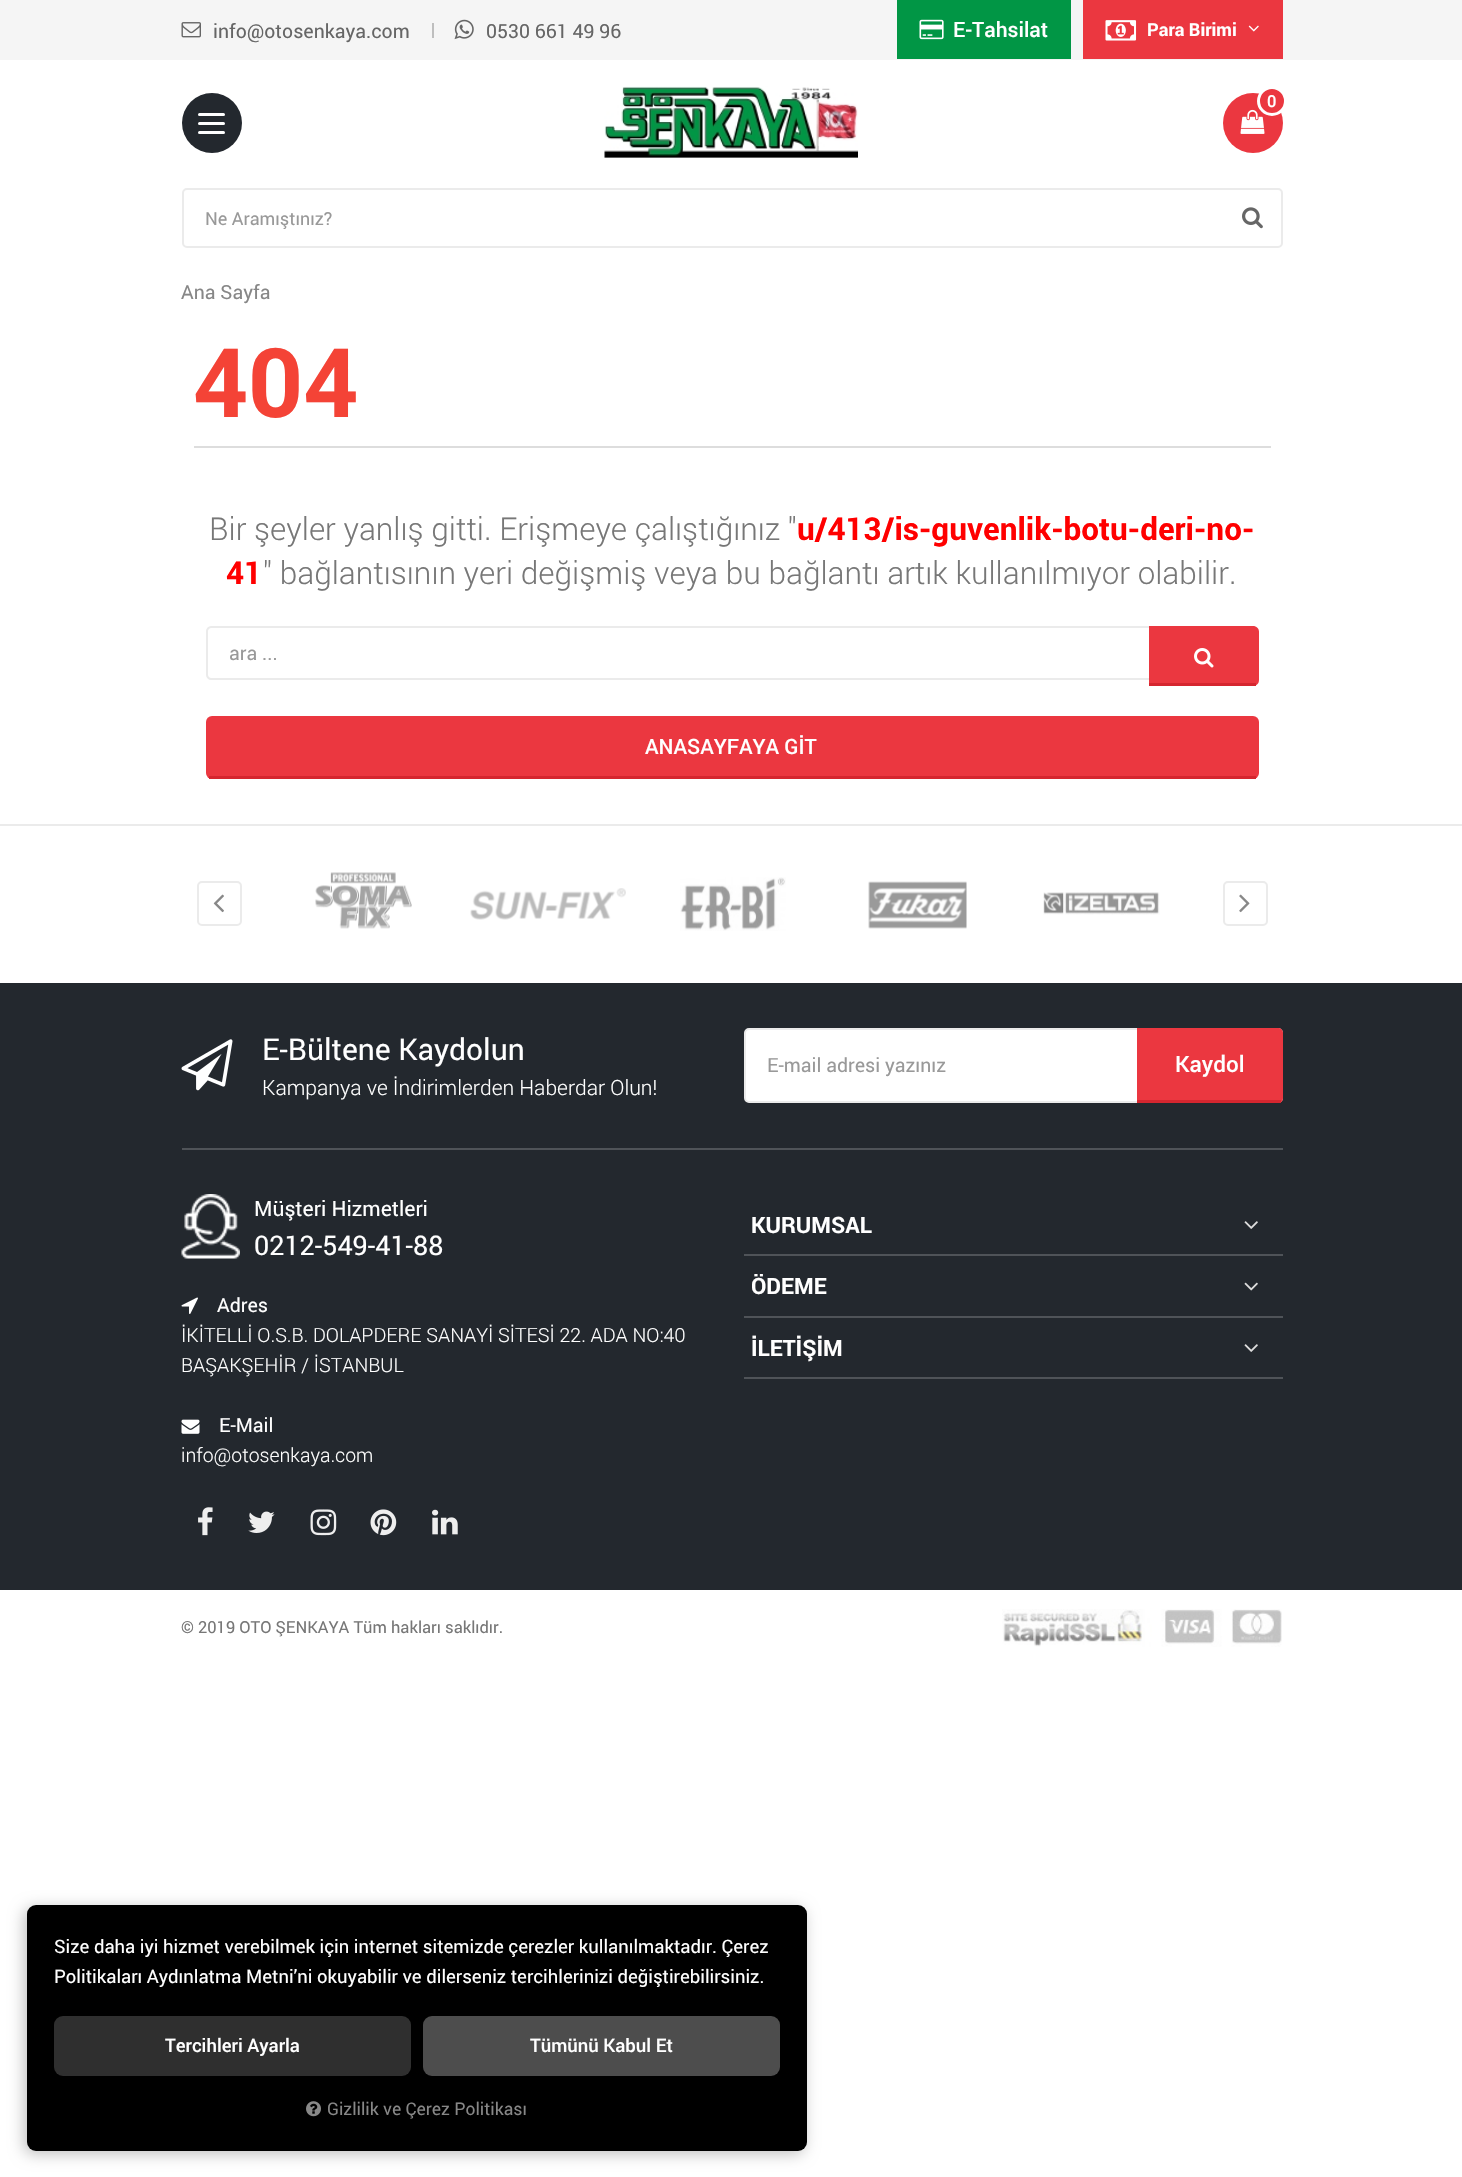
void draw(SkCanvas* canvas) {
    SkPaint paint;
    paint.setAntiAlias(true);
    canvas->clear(0xFFFFFFFF);
    paint.setColor(0xFFF5F5F5);
    canvas->drawRect(SkRect::MakeXYWH(0, 0, 1462, 60), paint);
    canvas->drawImageRect(SkImages::DeferredFromEncodedData(SkData::MakeFromFileName("img1.png")), SkRect::MakeXYWH(181, 22, 20, 16), SkSamplingOptions());
    SkFont font1(fontMgr->matchFamilyStyle("Roboto", SkFontStyle::Normal()), 19.5f);
    font1.setSubpixel(true);
    paint.setColor(0xFF666666);
    canvas->drawString("info@otosenkaya.com", 213, 38, font1, paint);
    paint.setColor(0xFFBEBEBE);
    canvas->drawRect(SkRect::MakeXYWH(432, 23, 2, 15), paint);
    canvas->drawImageRect(SkImages::DeferredFromEncodedData(SkData::MakeFromFileName("img2.png")), SkRect::MakeXYWH(454, 19, 20, 21), SkSamplingOptions());
    paint.setColor(0xFF666666);
    canvas->drawString("0530 661 49 96", 486, 38, font1, paint);
    paint.setColor(0xFF019645);
    canvas->drawRect(SkRect::MakeXYWH(897, 0, 174, 59), paint);
    canvas->drawImageRect(SkImages::DeferredFromEncodedData(SkData::MakeFromFileName("img3.png")), SkRect::MakeXYWH(919, 19, 25, 21), SkSamplingOptions());
    SkFont font2(fontMgr->matchFamilyStyle("Roboto", SkFontStyle(500, SkFontStyle::kNormal_Width, SkFontStyle::kUpright_Slant)), 21);
    font2.setSubpixel(true);
    paint.setColor(0xFFFFFFFF);
    canvas->drawString("E-Tahsilat", 953, 37, font2, paint);
    paint.setColor(0xFFEB3740);
    canvas->drawRect(SkRect::MakeXYWH(1083, 0, 200, 59), paint);
    canvas->drawImageRect(SkImages::DeferredFromEncodedData(SkData::MakeFromFileName("img4.png")), SkRect::MakeXYWH(1105, 20, 32, 21), SkSamplingOptions());
    SkFont font3(fontMgr->matchFamilyStyle("Roboto", SkFontStyle::Bold()), 18);
    font3.setSubpixel(true);
    paint.setColor(0xFFFFFFFF);
    canvas->drawString("Para Birimi", 1147, 36, font3, paint);
    canvas->drawImageRect(SkImages::DeferredFromEncodedData(SkData::MakeFromFileName("img5.png")), SkRect::MakeXYWH(1248, 25, 11, 7), SkSamplingOptions());
    paint.setColor(0xFF23282E);
    canvas->drawCircle(212, 123, 30, paint);
    paint.setColor(0xFFFFFFFF);
    canvas->drawRoundRect(SkRect::MakeXYWH(198, 113, 27, 3), 1.5f, 1.5f, paint);
    canvas->drawRoundRect(SkRect::MakeXYWH(198, 122, 27, 3), 1.5f, 1.5f, paint);
    canvas->drawRoundRect(SkRect::MakeXYWH(198, 131, 27, 3), 1.5f, 1.5f, paint);
    canvas->drawImageRect(SkImages::DeferredFromEncodedData(SkData::MakeFromFileName("img6.png")), SkRect::MakeXYWH(604, 86, 254, 72), SkSamplingOptions());
    paint.setColor(0xFFEB3740);
    canvas->drawCircle(1253, 123, 30, paint);
    canvas->drawImageRect(SkImages::DeferredFromEncodedData(SkData::MakeFromFileName("img7.png")), SkRect::MakeXYWH(1240, 109, 25, 25), SkSamplingOptions());
    canvas->drawCircle(1272, 101, 13.5f, paint);
    paint.setStyle(SkPaint::kStroke_Style);
    paint.setStrokeWidth(3);
    paint.setColor(0xFFFFFFFF);
    canvas->drawCircle(1272, 101, 13.5f, paint);
    SkFont font4(fontMgr->matchFamilyStyle("Roboto", SkFontStyle(500, SkFontStyle::kNormal_Width, SkFontStyle::kUpright_Slant)), 16.5f);
    font4.setSubpixel(true);
    paint.setStyle(SkPaint::kFill_Style);
    canvas->drawString("0", 1267, 107, font4, paint);
    paint.setStyle(SkPaint::kStroke_Style);
    paint.setStrokeWidth(2);
    paint.setColor(0xFFEBEBEB);
    canvas->drawRoundRect(SkRect::MakeXYWH(183, 189, 1099, 58), 4, 4, paint);
    SkFont font5(fontMgr->matchFamilyStyle("Roboto", SkFontStyle::Normal()), 18);
    font5.setSubpixel(true);
    paint.setStyle(SkPaint::kFill_Style);
    paint.setColor(0xFF999999);
    canvas->drawString("Ne Aramıştınız?", 205, 225, font5, paint);
    canvas->drawImageRect(SkImages::DeferredFromEncodedData(SkData::MakeFromFileName("img8.png")), SkRect::MakeXYWH(1242, 207, 21, 22), SkSamplingOptions());
    paint.setColor(0xFF878787);
    canvas->drawString("Ana Sayfa", 181, 299, font1, paint);
    paint.setColor(0xFFDDDDDD);
    canvas->drawRect(SkRect::MakeXYWH(194, 446, 1077, 2), paint);
    SkFont font6(fontMgr->matchFamilyStyle("Roboto", SkFontStyle::Bold()), 96);
    font6.setSubpixel(true);
    paint.setColor(0xFFF44336);
    canvas->drawString("404", 193, 417, font6, paint);
    SkFont font7(fontMgr->matchFamilyStyle("Roboto", SkFontStyle(300, SkFontStyle::kNormal_Width, SkFontStyle::kUpright_Slant)), 31.5f);
    font7.setSubpixel(true);
    paint.setColor(0xFF777777);
    canvas->drawString("Bir şeyler yanlış gitti. Erişmeye çalıştığınız \"", 209, 540, font7, paint);
    SkFont font8(fontMgr->matchFamilyStyle("Roboto", SkFontStyle::Bold()), 31.5f);
    font8.setSubpixel(true);
    paint.setColor(0xFFFF0000);
    canvas->drawString("u/413/is-guvenlik-botu-deri-no-", 797, 540, font8, paint);
    canvas->drawString("41", 226, 584, font8, paint);
    paint.setColor(0xFF777777);
    canvas->drawString("\" bağlantısının yeri değişmiş veya bu bağlantı artık kullanılmıyor olabilir.", 263, 584, font7, paint);
    paint.setStyle(SkPaint::kStroke_Style);
    paint.setColor(0xFFEBEBEB);
    canvas->drawPath(SkPathBuilder().moveTo(211, 627).lineTo(1150, 627).lineTo(1150, 679).lineTo(211, 679).cubicTo(209, 679, 207, 677, 207, 675).lineTo(207, 631).cubicTo(207, 629, 209, 627, 211, 627).close().detach(), paint);
    paint.setStyle(SkPaint::kFill_Style);
    paint.setColor(0xFF999999);
    canvas->drawString("ara ...", 229, 660, font1, paint);
    paint.setColor(0xFFEB3740);
    canvas->drawPath(SkPathBuilder().moveTo(1149, 626).lineTo(1253, 626).cubicTo(1256.5f, 626, 1259, 628.5f, 1259, 632).lineTo(1259, 680).cubicTo(1259, 683.5f, 1256.5f, 686, 1253, 686).lineTo(1149, 686).close().detach(), paint);
    paint.setColor(0xFFD5262F);
    canvas->drawRect(SkRect::MakeXYWH(1149, 683, 107, 3), paint);
    canvas->drawImageRect(SkImages::DeferredFromEncodedData(SkData::MakeFromFileName("img9.png")), SkRect::MakeXYWH(1194, 648, 20, 20), SkSamplingOptions());
    paint.setColor(0xFFEB3740);
    canvas->drawRoundRect(SkRect::MakeXYWH(206, 716, 1053, 63), 6, 6, paint);
    paint.setColor(0xFFD5262F);
    canvas->drawRect(SkRect::MakeXYWH(209, 776, 1047, 3), paint);
    paint.setColor(0xFFFFFFFF);
    canvas->drawString("ANASAYFAYA GİT", 645, 754, font2, paint);
    paint.setColor(0xFFEBEBEB);
    canvas->drawRect(SkRect::MakeXYWH(0, 824, 1462, 2), paint);
    paint.setStyle(SkPaint::kStroke_Style);
    canvas->drawRoundRect(SkRect::MakeXYWH(198, 882, 43, 43), 4, 4, paint);
    canvas->drawImageRect(SkImages::DeferredFromEncodedData(SkData::MakeFromFileName("img10.png")), SkRect::MakeXYWH(213, 894, 11, 19), SkSamplingOptions());
    canvas->drawImageRect(SkImages::DeferredFromEncodedData(SkData::MakeFromFileName("img11.png")), SkRect::MakeXYWH(315, 872, 97, 57), SkSamplingOptions());
    canvas->drawImageRect(SkImages::DeferredFromEncodedData(SkData::MakeFromFileName("img12.png")), SkRect::MakeXYWH(470, 888, 156, 32), SkSamplingOptions());
    canvas->drawImageRect(SkImages::DeferredFromEncodedData(SkData::MakeFromFileName("img13.png")), SkRect::MakeXYWH(680, 877, 106, 54), SkSamplingOptions());
    canvas->drawImageRect(SkImages::DeferredFromEncodedData(SkData::MakeFromFileName("img14.png")), SkRect::MakeXYWH(868, 881, 99, 48), SkSamplingOptions());
    canvas->drawImageRect(SkImages::DeferredFromEncodedData(SkData::MakeFromFileName("img15.png")), SkRect::MakeXYWH(1043, 892, 117, 23), SkSamplingOptions());
    canvas->drawRoundRect(SkRect::MakeXYWH(1224, 882, 43, 43), 4, 4, paint);
    canvas->drawImageRect(SkImages::DeferredFromEncodedData(SkData::MakeFromFileName("img16.png")), SkRect::MakeXYWH(1239, 894, 11, 19), SkSamplingOptions());
    paint.setStyle(SkPaint::kFill_Style);
    paint.setColor(0xFF23282E);
    canvas->drawRect(SkRect::MakeXYWH(0, 983, 1462, 607), paint);
    paint.setColor(0xFF4F5358);
    canvas->drawRect(SkRect::MakeXYWH(182, 1148, 1101, 2), paint);
    canvas->drawImageRect(SkImages::DeferredFromEncodedData(SkData::MakeFromFileName("img17.png")), SkRect::MakeXYWH(181, 1039, 52, 52), SkSamplingOptions());
    SkFont font9(fontMgr->matchFamilyStyle("Roboto", SkFontStyle::Normal()), 30);
    font9.setSubpixel(true);
    paint.setColor(0xFFFFFFFF);
    canvas->drawString("E-Bültene Kaydolun", 262, 1060, font9, paint);
    SkFont font10(fontMgr->matchFamilyStyle("Roboto", SkFontStyle(300, SkFontStyle::kNormal_Width, SkFontStyle::kUpright_Slant)), 21);
    font10.setSubpixel(true);
    canvas->drawString("Kampanya ve İndirimlerden Haberdar Olun!", 262, 1095, font10, paint);
    canvas->drawRoundRect(SkRect::MakeXYWH(745, 1029, 537, 73), 4, 4, paint);
    paint.setStyle(SkPaint::kStroke_Style);
    paint.setColor(0xFFEBEBEB);
    canvas->drawRoundRect(SkRect::MakeXYWH(745, 1029, 537, 73), 4, 4, paint);
    paint.setStyle(SkPaint::kFill_Style);
    paint.setColor(0xFF999999);
    canvas->drawString("E-mail adresi yazınız", 767, 1072, font1, paint);
    paint.setColor(0xFFEB3740);
    canvas->drawPath(SkPathBuilder().moveTo(1137, 1028).lineTo(1278, 1028).cubicTo(1281, 1028, 1283, 1030, 1283, 1033).lineTo(1283, 1098).cubicTo(1283, 1101, 1281, 1103, 1278, 1103).lineTo(1137, 1103).close().detach(), paint);
    paint.setColor(0xFFD5262F);
    canvas->drawRect(SkRect::MakeXYWH(1137, 1100, 144, 3), paint);
    SkFont font11(fontMgr->matchFamilyStyle("Roboto", SkFontStyle(500, SkFontStyle::kNormal_Width, SkFontStyle::kUpright_Slant)), 22.5f);
    font11.setSubpixel(true);
    paint.setColor(0xFFFFFFFF);
    canvas->drawString("Kaydol", 1175, 1072, font11, paint);
    canvas->drawImageRect(SkImages::DeferredFromEncodedData(SkData::MakeFromFileName("img18.png")), SkRect::MakeXYWH(181, 1194, 59, 65), SkSamplingOptions());
    SkFont font12(fontMgr->matchFamilyStyle("Roboto", SkFontStyle::Normal()), 21);
    font12.setSubpixel(true);
    canvas->drawString("Müşteri Hizmetleri", 254, 1216, font12, paint);
    SkFont font13(fontMgr->matchFamilyStyle("Roboto", SkFontStyle::Normal()), 27);
    font13.setSubpixel(true);
    canvas->drawString("0212-549-41-88", 254, 1255, font13, paint);
    canvas->drawImageRect(SkImages::DeferredFromEncodedData(SkData::MakeFromFileName("img19.png")), SkRect::MakeXYWH(181, 1297, 17, 17), SkSamplingOptions());
    canvas->drawString("Adres", 217, 1312, font1, paint);
    SkFont font14(fontMgr->matchFamilyStyle("Roboto", SkFontStyle(300, SkFontStyle::kNormal_Width, SkFontStyle::kUpright_Slant)), 19.5f);
    font14.setSubpixel(true);
    canvas->drawString("İKİTELLİ O.S.B. DOLAPDERE SANAYİ SİTESİ 22. ADA NO:40", 181, 1342, font14, paint);
    canvas->drawString("BAŞAKŞEHİR / İSTANBUL", 181, 1372, font14, paint);
    canvas->drawImageRect(SkImages::DeferredFromEncodedData(SkData::MakeFromFileName("img20.png")), SkRect::MakeXYWH(181, 1419, 19, 15), SkSamplingOptions());
    canvas->drawString("E-Mail", 219, 1432, font1, paint);
    canvas->drawString("info@otosenkaya.com", 181, 1462, font14, paint);
    canvas->drawImageRect(SkImages::DeferredFromEncodedData(SkData::MakeFromFileName("img21.png")), SkRect::MakeXYWH(198, 1507, 15, 29), SkSamplingOptions());
    canvas->drawImageRect(SkImages::DeferredFromEncodedData(SkData::MakeFromFileName("img22.png")), SkRect::MakeXYWH(248, 1511, 27, 22), SkSamplingOptions());
    canvas->drawImageRect(SkImages::DeferredFromEncodedData(SkData::MakeFromFileName("img23.png")), SkRect::MakeXYWH(310, 1509, 27, 27), SkSamplingOptions());
    canvas->drawImageRect(SkImages::DeferredFromEncodedData(SkData::MakeFromFileName("img24.png")), SkRect::MakeXYWH(370, 1509, 27, 27), SkSamplingOptions());
    canvas->drawImageRect(SkImages::DeferredFromEncodedData(SkData::MakeFromFileName("img25.png")), SkRect::MakeXYWH(432, 1509, 26, 26), SkSamplingOptions());
    paint.setColor(0xFF4F5358);
    canvas->drawRect(SkRect::MakeXYWH(744, 1254, 539, 2), paint);
    SkFont font15(fontMgr->matchFamilyStyle("Roboto", SkFontStyle::Bold()), 22.5f);
    font15.setSubpixel(true);
    paint.setColor(0xFFFFFFFF);
    canvas->drawString("KURUMSAL", 751, 1233, font15, paint);
    canvas->drawImageRect(SkImages::DeferredFromEncodedData(SkData::MakeFromFileName("img26.png")), SkRect::MakeXYWH(1244, 1221, 14, 8), SkSamplingOptions());
    paint.setColor(0xFF4F5358);
    canvas->drawRect(SkRect::MakeXYWH(744, 1316, 539, 2), paint);
    paint.setColor(0xFFFFFFFF);
    canvas->drawString("ÖDEME", 751, 1294, font15, paint);
    canvas->drawImageRect(SkImages::DeferredFromEncodedData(SkData::MakeFromFileName("img27.png")), SkRect::MakeXYWH(1244, 1282, 14, 9), SkSamplingOptions());
    paint.setColor(0xFF4F5358);
    canvas->drawRect(SkRect::MakeXYWH(744, 1377, 539, 2), paint);
    paint.setColor(0xFFFFFFFF);
    canvas->drawString("İLETİŞİM", 751, 1356, font15, paint);
    canvas->drawImageRect(SkImages::DeferredFromEncodedData(SkData::MakeFromFileName("img26.png")), SkRect::MakeXYWH(1244, 1344, 14, 8), SkSamplingOptions());
    SkFont font16(fontMgr->matchFamilyStyle("Roboto", SkFontStyle::Normal()), 16.5f);
    font16.setSubpixel(true);
    paint.setColor(0xFF777777);
    canvas->drawString("© 2019 OTO ŞENKAYA Tüm hakları saklıdır.", 181, 1633, font16, paint);
    canvas->drawImageRect(SkImages::DeferredFromEncodedData(SkData::MakeFromFileName("img28.png")), SkRect::MakeXYWH(1002, 1609, 280, 38), SkSamplingOptions());
    paint.setColor(0x40000000);
    paint.setMaskFilter(SkMaskFilter::MakeBlur(kNormal_SkBlurStyle, 7.5f));
    canvas->drawRoundRect(SkRect::MakeXYWH(24, 1908, 780, 246), 9, 9, paint);
    paint.setMaskFilter(nullptr);
    paint.setColor(0xFF000000);
    canvas->drawRoundRect(SkRect::MakeXYWH(27, 1905, 780, 246), 9, 9, paint);
    SkFont font17(fontMgr->matchFamilyStyle("Roboto", SkFontStyle::Normal()), 18.5f);
    font17.setSubpixel(true);
    paint.setColor(0xFFFFFFFF);
    canvas->drawString("Size daha iyi hizmet verebilmek için internet sitemizde çerezler kullanılmaktadır. Çerez", 54, 1953, font17, paint);
    canvas->drawString("Politikaları Aydınlatma Metni’ni okuyabilir ve dilerseniz tercihlerinizi değiştirebilirsiniz.", 54, 1983, font17, paint);
    paint.setColor(0xFF2F2F2F);
    canvas->drawRoundRect(SkRect::MakeXYWH(54, 2016, 357, 60), 9, 9, paint);
    SkFont font18(fontMgr->matchFamilyStyle("Roboto", SkFontStyle(500, SkFontStyle::kNormal_Width, SkFontStyle::kUpright_Slant)), 18.5f);
    font18.setSubpixel(true);
    paint.setColor(0xFFFFFFFF);
    canvas->drawString("Tercihleri Ayarla", 165, 2052, font18, paint);
    paint.setColor(0xFF4D4D4D);
    canvas->drawRoundRect(SkRect::MakeXYWH(423, 2016, 357, 60), 9, 9, paint);
    paint.setColor(0xFFFFFFFF);
    canvas->drawString("Tümünü Kabul Et", 530, 2052, font18, paint);
    canvas->drawImageRect(SkImages::DeferredFromEncodedData(SkData::MakeFromFileName("img29.png")), SkRect::MakeXYWH(306, 2101, 15, 16), SkSamplingOptions());
    SkFont font19(fontMgr->matchFamilyStyle("Roboto", SkFontStyle::Normal()), 17.5f);
    font19.setSubpixel(true);
    paint.setColor(0xFF878787);
    canvas->drawString("Gizlilik ve Çerez Politikası", 327, 2115, font19, paint);
}
